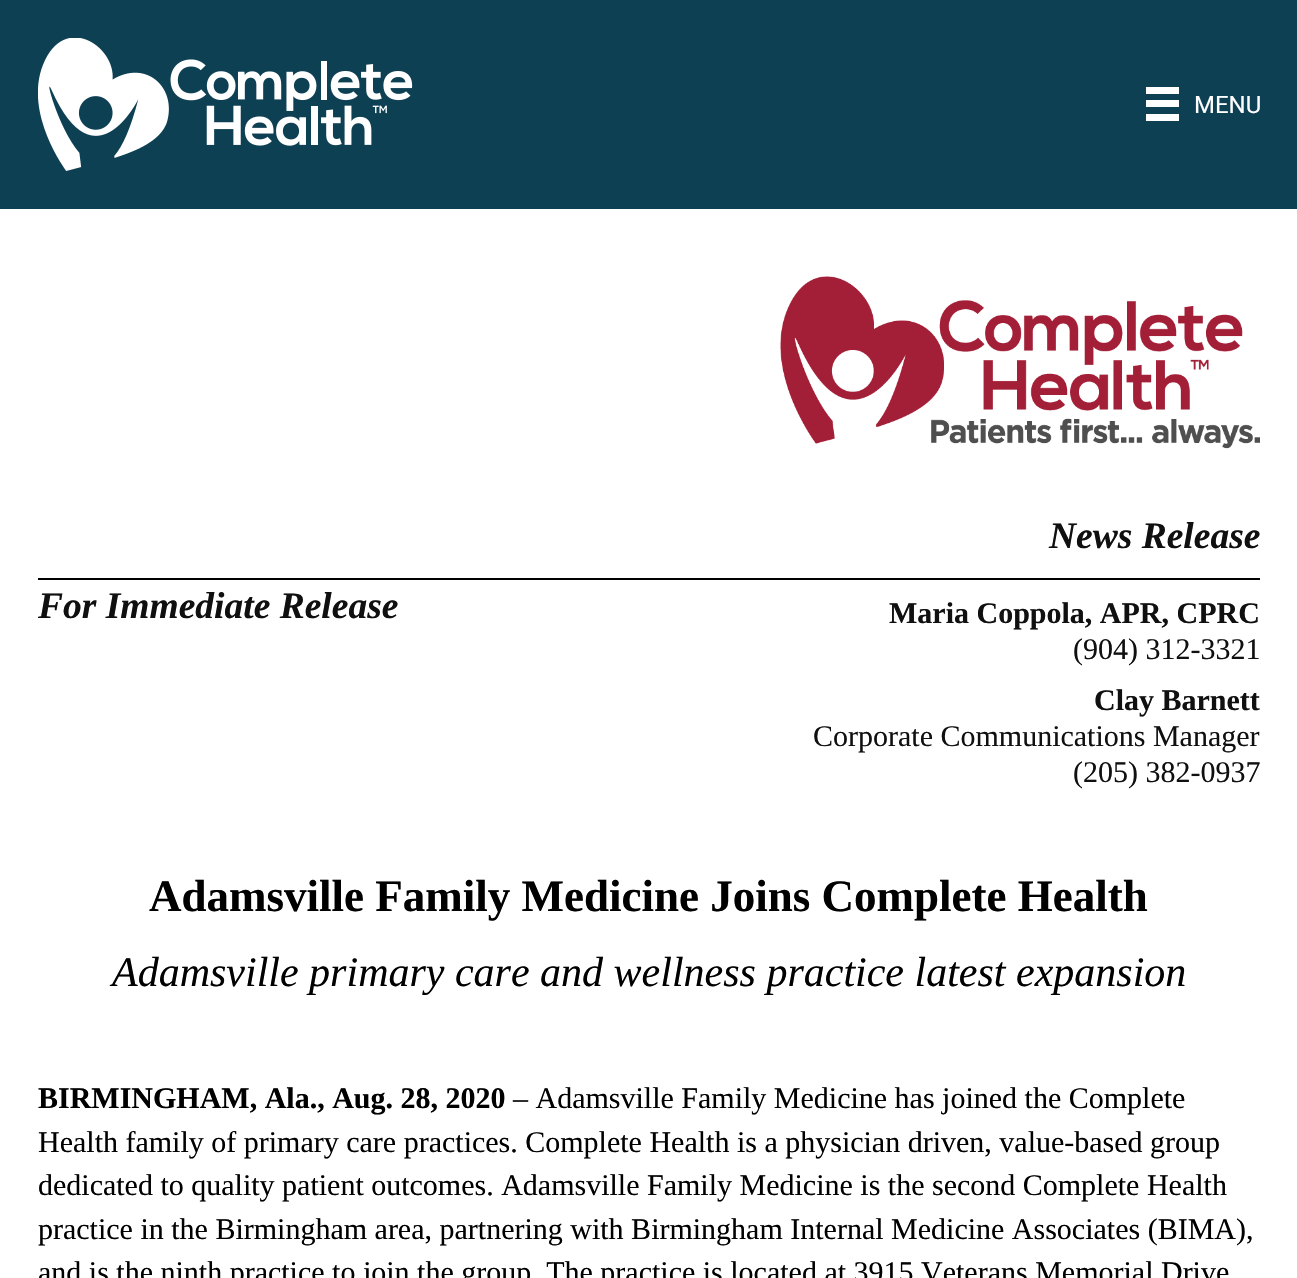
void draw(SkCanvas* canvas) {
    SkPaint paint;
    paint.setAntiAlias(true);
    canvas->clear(0xFFFFFFFF);
    paint.setColor(0xFF0E4054);
    canvas->drawRect(SkRect::MakeXYWH(0, 0, 1297, 209), paint);
    canvas->drawImageRect(SkImages::DeferredFromEncodedData(SkData::MakeFromFileName("img1.png")), SkRect::MakeXYWH(38, 38, 375, 133), SkSamplingOptions());
    paint.setColor(0xFFFFFFFF);
    canvas->drawRect(SkRect::MakeXYWH(1146, 87, 33, 7), paint);
    canvas->drawRect(SkRect::MakeXYWH(1146, 100, 33, 7), paint);
    canvas->drawRect(SkRect::MakeXYWH(1146, 114, 33, 7), paint);
    SkFont font1(fontMgr->matchFamilyStyle("Roboto", SkFontStyle::Normal()), 24);
    font1.setSubpixel(true);
    canvas->drawString("MENU", 1194, 113, font1, paint);
    canvas->drawImageRect(SkImages::DeferredFromEncodedData(SkData::MakeFromFileName("img2.png")), SkRect::MakeXYWH(780, 276, 480, 173), SkSamplingOptions());
    SkFont font2(fontMgr->matchFamilyStyle("Liberation Serif", SkFontStyle::BoldItalic()), 37.5f);
    font2.setSubpixel(true);
    paint.setColor(0xFF101010);
    canvas->drawString("News Release", 1049, 548, font2, paint);
    paint.setColor(0xFF000000);
    canvas->drawRect(SkRect::MakeXYWH(38, 578, 1222, 2), paint);
    paint.setColor(0xFF101010);
    canvas->drawString("For Immediate Release", 38, 618, font2, paint);
    SkFont font3(fontMgr->matchFamilyStyle("Liberation Serif", SkFontStyle::Bold()), 30);
    font3.setSubpixel(true);
    canvas->drawString("Maria Coppola, APR, CPRC", 889, 623, font3, paint);
    SkFont font4(fontMgr->matchFamilyStyle("Liberation Serif", SkFontStyle::Normal()), 30);
    font4.setSubpixel(true);
    canvas->drawString("(904) 312-3321", 1073, 659, font4, paint);
    canvas->drawString("Clay Barnett", 1094, 710, font3, paint);
    canvas->drawString("Corporate Communications Manager", 813, 746, font4, paint);
    canvas->drawString("(205) 382-0937", 1073, 782, font4, paint);
    SkFont font5(fontMgr->matchFamilyStyle("Liberation Serif", SkFontStyle::Bold()), 45);
    font5.setSubpixel(true);
    paint.setColor(0xFF000000);
    canvas->drawString("Adamsville Family Medicine Joins Complete Health", 149, 911, font5, paint);
    SkFont font6(fontMgr->matchFamilyStyle("Liberation Serif", SkFontStyle::Italic()), 42);
    font6.setSubpixel(true);
    canvas->drawString("Adamsville primary care and wellness practice latest expansion", 112, 986, font6, paint);
    canvas->drawString("BIRMINGHAM, Ala., Aug. 28, 2020", 38, 1108, font3, paint);
    canvas->drawString("– Adamsville Family Medicine has joined the Complete", 513, 1108, font4, paint);
    canvas->drawString("Health family of primary care practices. Complete Health is a physician driven, value-based group", 38, 1152, font4, paint);
    canvas->drawString("dedicated to quality patient outcomes. Adamsville Family Medicine is the second Complete Health", 38, 1195, font4, paint);
    canvas->drawString("practice in the Birmingham area, partnering with Birmingham Internal Medicine Associates (BIMA),", 38, 1239, font4, paint);
    canvas->drawString("and is the ninth practice to join the group. The practice is located at 3915 Veterans Memorial Drive", 38, 1282, font4, paint);
}
